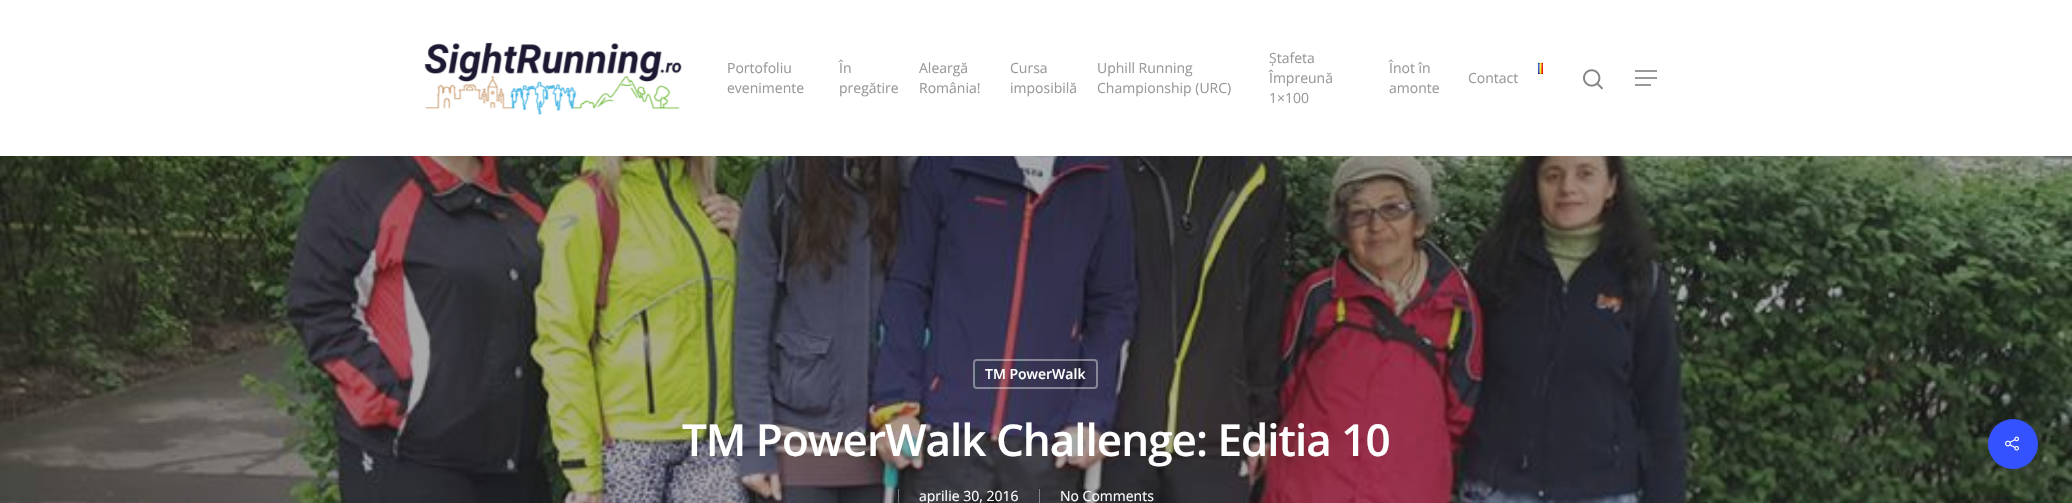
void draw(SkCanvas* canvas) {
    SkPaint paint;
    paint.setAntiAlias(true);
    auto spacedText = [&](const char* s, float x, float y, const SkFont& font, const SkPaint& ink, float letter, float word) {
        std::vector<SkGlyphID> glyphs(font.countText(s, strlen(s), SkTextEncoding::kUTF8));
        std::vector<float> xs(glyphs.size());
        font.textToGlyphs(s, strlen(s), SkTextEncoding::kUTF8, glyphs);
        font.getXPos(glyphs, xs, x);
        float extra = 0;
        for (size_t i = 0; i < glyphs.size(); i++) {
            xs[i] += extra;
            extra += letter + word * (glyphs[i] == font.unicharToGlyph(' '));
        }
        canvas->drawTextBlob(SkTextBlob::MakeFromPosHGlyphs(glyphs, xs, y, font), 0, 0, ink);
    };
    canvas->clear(0xFFFFFFFF);
    canvas->drawImageRect(SkImages::DeferredFromEncodedData(SkData::MakeFromFileName("img1.png")), SkRect::MakeXYWH(424, 42, 258, 73), SkSamplingOptions());
    SkFont font1(fontMgr->matchFamilyStyle("Open Sans", SkFontStyle::Normal()), 14);
    font1.setSubpixel(true);
    paint.setColor(0xFF999999);
    canvas->drawString("Portofoliu", 727, 73, font1, paint);
    canvas->drawString("evenimente", 727, 93, font1, paint);
    canvas->drawString("În", 839, 73, font1, paint);
    canvas->drawString("pregătire", 839, 93, font1, paint);
    canvas->drawString("Aleargă", 919, 73, font1, paint);
    canvas->drawString("România!", 919, 93, font1, paint);
    canvas->drawString("Cursa", 1010, 73, font1, paint);
    canvas->drawString("imposibilă", 1010, 93, font1, paint);
    canvas->drawString("Uphill Running", 1097, 73, font1, paint);
    canvas->drawString("Championship (URC)", 1097, 93, font1, paint);
    canvas->drawString("Ștafeta", 1269, 63, font1, paint);
    canvas->drawString("Împreună", 1269, 83, font1, paint);
    canvas->drawString("1×100", 1269, 103, font1, paint);
    canvas->drawString("Înot în", 1389, 73, font1, paint);
    canvas->drawString("amonte", 1389, 93, font1, paint);
    canvas->drawImageRect(SkImages::DeferredFromEncodedData(SkData::MakeFromFileName("img2.png")), SkRect::MakeXYWH(1538, 62, 5, 12), SkSamplingOptions());
    canvas->drawString("Contact", 1468, 83, font1, paint);
    canvas->drawImageRect(SkImages::DeferredFromEncodedData(SkData::MakeFromFileName("img3.png")), SkRect::MakeXYWH(1583, 69, 20, 21), SkSamplingOptions());
    canvas->drawRect(SkRect::MakeXYWH(1635, 70, 22, 2), paint);
    canvas->drawRect(SkRect::MakeXYWH(1635, 84, 16, 2), paint);
    canvas->drawRect(SkRect::MakeXYWH(1635, 77, 22, 2), paint);
    canvas->drawImageRect(SkImages::DeferredFromEncodedData(SkData::MakeFromFileName("img4.png")), SkRect::MakeXYWH(0, 156, 2072, 347), SkSamplingOptions());
    paint.setStyle(SkPaint::kStroke_Style);
    paint.setStrokeWidth(2);
    paint.setColor(0x66FFFFFF);
    canvas->drawRoundRect(SkRect::MakeXYWH(974, 360, 123, 28), 3, 3, paint);
    SkFont font2(fontMgr->matchFamilyStyle("Open Sans", SkFontStyle(600, SkFontStyle::kNormal_Width, SkFontStyle::kUpright_Slant)), 14);
    font2.setSubpixel(true);
    paint.setStyle(SkPaint::kFill_Style);
    paint.setColor(0xFFFFFFFF);
    canvas->drawString("TM PowerWalk", 985, 379, font2, paint);
    SkFont font3(fontMgr->matchFamilyStyle("Open Sans", SkFontStyle(600, SkFontStyle::kNormal_Width, SkFontStyle::kUpright_Slant)), 44);
    font3.setSubpixel(true);
    spacedText("TM PowerWalk Challenge: Editia 10", 682, 456, font3, paint, -1, 0);
    paint.setColor(0x66FFFFFF);
    canvas->drawRect(SkRect::MakeXYWH(898, 489, 1, 14), paint);
    paint.setColor(0xFFFFFFFF);
    canvas->drawString("aprilie 30, 2016", 919, 501, font1, paint);
    paint.setColor(0x66FFFFFF);
    canvas->drawRect(SkRect::MakeXYWH(1039, 489, 1, 14), paint);
    paint.setColor(0xFFFFFFFF);
    canvas->drawString("No Comments", 1060, 501, font1, paint);
    paint.setColor(0xFF3452FF);
    canvas->drawCircle(2013, 444, 25, paint);
    canvas->drawImageRect(SkImages::DeferredFromEncodedData(SkData::MakeFromFileName("img5.png")), SkRect::MakeXYWH(2005, 436, 14, 15), SkSamplingOptions());
}
